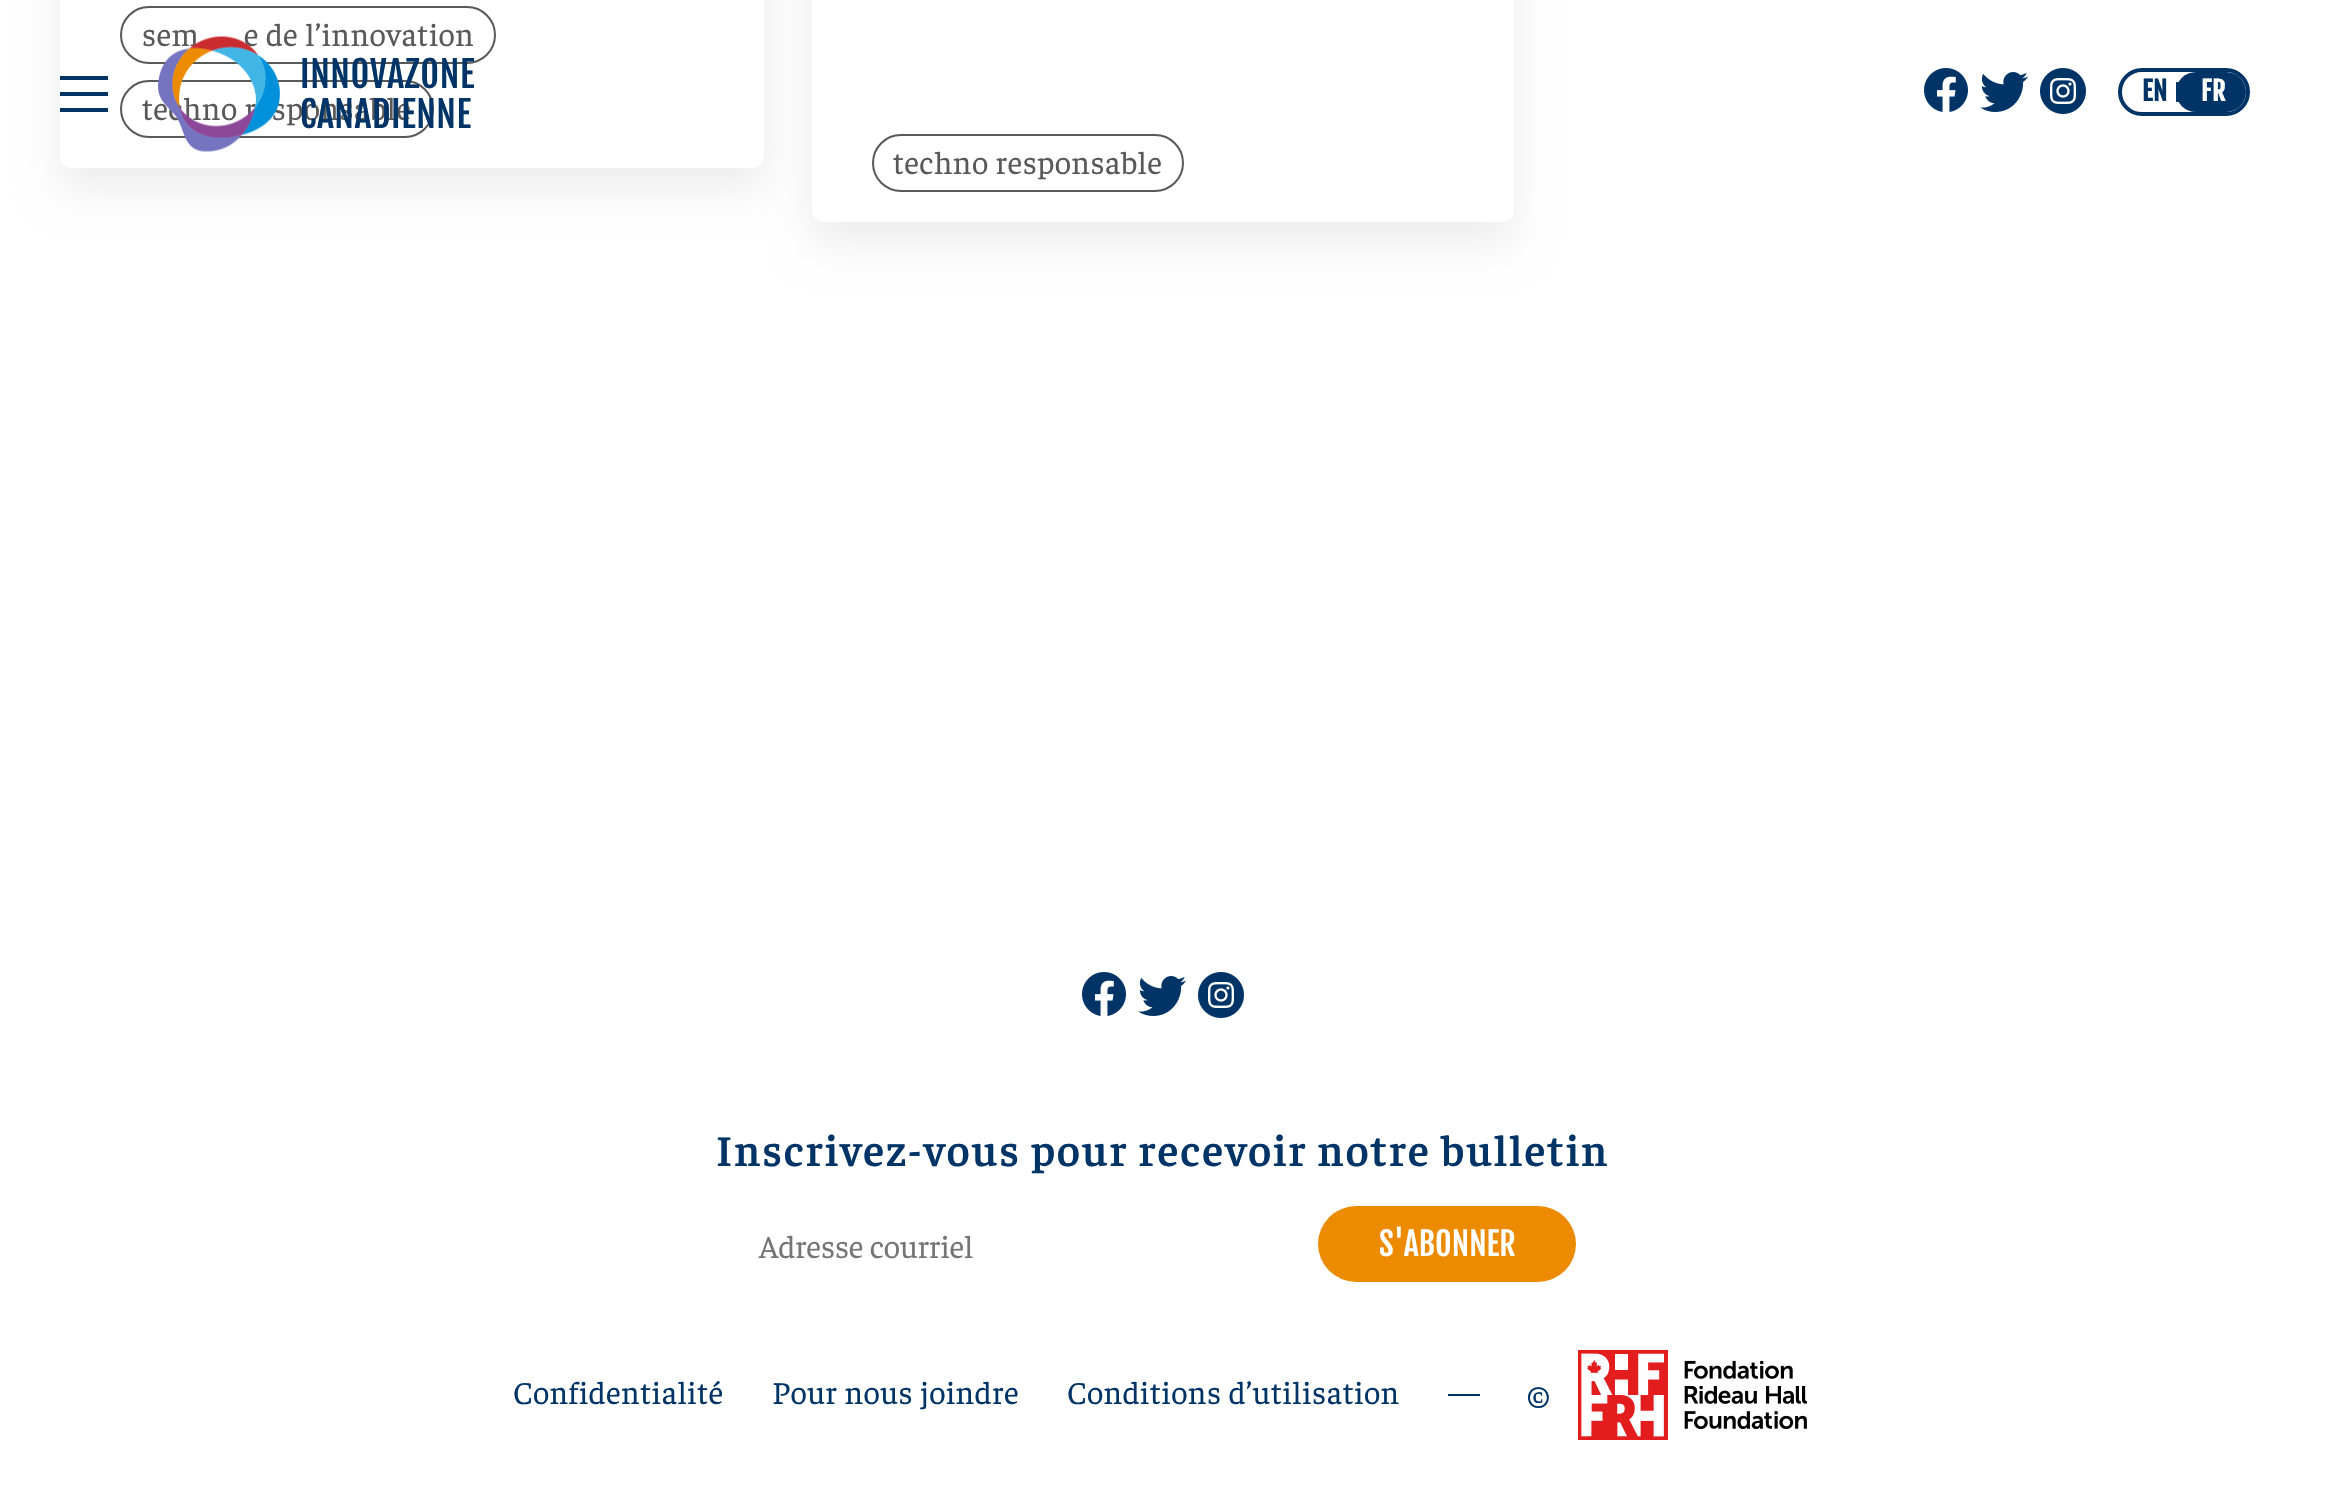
void draw(SkCanvas* canvas) {
    SkPaint paint;
    paint.setAntiAlias(true);
    auto spacedText = [&](const char* s, float x, float y, const SkFont& font, const SkPaint& ink, float letter, float word) {
        std::vector<SkGlyphID> glyphs(font.countText(s, strlen(s), SkTextEncoding::kUTF8));
        std::vector<float> xs(glyphs.size());
        font.textToGlyphs(s, strlen(s), SkTextEncoding::kUTF8, glyphs);
        font.getXPos(glyphs, xs, x);
        float extra = 0;
        for (size_t i = 0; i < glyphs.size(); i++) {
            xs[i] += extra;
            extra += letter + word * (glyphs[i] == font.unicharToGlyph(' '));
        }
        canvas->drawTextBlob(SkTextBlob::MakeFromPosHGlyphs(glyphs, xs, y, font), 0, 0, ink);
    };
    canvas->clear(0xFFFFFFFF);
    paint.setColor(0x12000000);
    paint.setMaskFilter(SkMaskFilter::MakeBlur(kNormal_SkBlurStyle, 21));
    canvas->drawRoundRect(SkRect::MakeXYWH(60, -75, 704, 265), 12, 12, paint);
    paint.setMaskFilter(nullptr);
    paint.setColor(0xFFFFFFFF);
    canvas->drawRoundRect(SkRect::MakeXYWH(60, -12, 704, 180), 12, 12, paint);
    paint.setStyle(SkPaint::kStroke_Style);
    paint.setStrokeWidth(2);
    paint.setColor(0xFF595959);
    canvas->drawRoundRect(SkRect::MakeXYWH(121, 7, 374, 56), 28, 28, paint);
    SkFont font1(fontMgr->matchFamilyStyle("Faustina", SkFontStyle::Normal()), 32);
    font1.setSubpixel(true);
    paint.setStyle(SkPaint::kFill_Style);
    spacedText("sem", 142, 46, font1, paint, 0.6f, 0);
    spacedText("e de l’innovation", 244, 46, font1, paint, 0.6f, 0);
    paint.setStyle(SkPaint::kStroke_Style);
    canvas->drawRoundRect(SkRect::MakeXYWH(121, 81, 312, 56), 28, 28, paint);
    paint.setStyle(SkPaint::kFill_Style);
    spacedText("techno responsable", 142, 120, font1, paint, 0.6f, 0);
    paint.setColor(0x12000000);
    paint.setMaskFilter(SkMaskFilter::MakeBlur(kNormal_SkBlurStyle, 21));
    canvas->drawRoundRect(SkRect::MakeXYWH(812, -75, 702, 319), 12, 12, paint);
    paint.setMaskFilter(nullptr);
    paint.setColor(0xFFFFFFFF);
    canvas->drawRoundRect(SkRect::MakeXYWH(812, -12, 702, 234), 12, 12, paint);
    paint.setStyle(SkPaint::kStroke_Style);
    paint.setColor(0xFF595959);
    canvas->drawRoundRect(SkRect::MakeXYWH(873, 135, 310, 56), 28, 28, paint);
    paint.setStyle(SkPaint::kFill_Style);
    spacedText("techno responsable", 893, 174, font1, paint, 0.6f, 0);
    paint.setColor(0xFF003467);
    canvas->drawRect(SkRect::MakeXYWH(60, 92, 48, 4), paint);
    canvas->drawRect(SkRect::MakeXYWH(60, 76, 48, 4), paint);
    canvas->drawRect(SkRect::MakeXYWH(60, 108, 48, 4), paint);
    canvas->drawImageRect(SkImages::DeferredFromEncodedData(SkData::MakeFromFileName("img1.png")), SkRect::MakeXYWH(158, 36, 122, 116), SkSamplingOptions());
    SkFont font2(fontMgr->matchFamilyStyle("Fjalla One", SkFontStyle::Normal()), 36);
    font2.setSubpixel(true);
    spacedText("INNOVAZONE", 300, 88, font2, paint, 0.6f, 0);
    spacedText("CANADIENNE", 300, 128, font2, paint, 0.6f, 0);
    canvas->drawImageRect(SkImages::DeferredFromEncodedData(SkData::MakeFromFileName("img2.png")), SkRect::MakeXYWH(1924, 68, 44, 44), SkSamplingOptions());
    canvas->drawImageRect(SkImages::DeferredFromEncodedData(SkData::MakeFromFileName("img3.png")), SkRect::MakeXYWH(1980, 72, 48, 40), SkSamplingOptions());
    canvas->drawImageRect(SkImages::DeferredFromEncodedData(SkData::MakeFromFileName("img4.png")), SkRect::MakeXYWH(2040, 68, 46, 46), SkSamplingOptions());
    paint.setStyle(SkPaint::kStroke_Style);
    paint.setStrokeWidth(4);
    canvas->drawRoundRect(SkRect::MakeXYWH(2120, 70, 128, 44), 22, 22, paint);
    SkFont font3(fontMgr->matchFamilyStyle("Fjalla One", SkFontStyle::Bold()), 26);
    font3.setSubpixel(true);
    paint.setStyle(SkPaint::kFill_Style);
    spacedText("EN", 2142, 101, font3, paint, 0.6f, 0);
    canvas->drawRoundRect(SkRect::MakeXYWH(2176, 72, 70, 40), 20, 20, paint);
    canvas->drawRect(SkRect::MakeXYWH(2176, 82, 3, 20), paint);
    paint.setColor(0xFFFFFFFF);
    spacedText("FR", 2201, 101, font3, paint, 0.6f, 0);
    canvas->drawImageRect(SkImages::DeferredFromEncodedData(SkData::MakeFromFileName("img2.png")), SkRect::MakeXYWH(1082, 972, 44, 44), SkSamplingOptions());
    canvas->drawImageRect(SkImages::DeferredFromEncodedData(SkData::MakeFromFileName("img3.png")), SkRect::MakeXYWH(1138, 976, 48, 40), SkSamplingOptions());
    canvas->drawImageRect(SkImages::DeferredFromEncodedData(SkData::MakeFromFileName("img4.png")), SkRect::MakeXYWH(1198, 972, 46, 46), SkSamplingOptions());
    SkFont font4(fontMgr->matchFamilyStyle("Faustina", SkFontStyle(600, SkFontStyle::kNormal_Width, SkFontStyle::kUpright_Slant)), 44);
    font4.setSubpixel(true);
    paint.setColor(0xFF003467);
    spacedText("Inscrivez-vous pour recevoir notre bulletin", 716, 1166, font4, paint, 2, 0);
    paint.setColor(0xFF757575);
    canvas->drawString("Adresse courriel", 759, 1258, font1, paint);
    paint.setColor(0xFFED8B00);
    canvas->drawRoundRect(SkRect::MakeXYWH(1318, 1206, 258, 76), 38, 38, paint);
    SkFont font5(fontMgr->matchFamilyStyle("Fjalla One", SkFontStyle::Normal()), 32);
    font5.setSubpixel(true);
    paint.setColor(0xFFFFFFFF);
    canvas->drawString("S'ABONNER", 1379, 1256, font5, paint);
    paint.setColor(0xFF003467);
    spacedText("Confidentialité", 513, 1404, font1, paint, 0.6f, 0);
    spacedText("Pour nous joindre", 772, 1404, font1, paint, 0.6f, 0);
    spacedText("Conditions d’utilisation", 1067, 1404, font1, paint, 0.6f, 0);
    canvas->drawRect(SkRect::MakeXYWH(1448, 1394, 32, 2), paint);
    spacedText("©", 1528, 1408, font1, paint, 0.6f, 0);
    canvas->drawImageRect(SkImages::DeferredFromEncodedData(SkData::MakeFromFileName("img5.png")), SkRect::MakeXYWH(1578, 1350, 229, 90), SkSamplingOptions());
}
